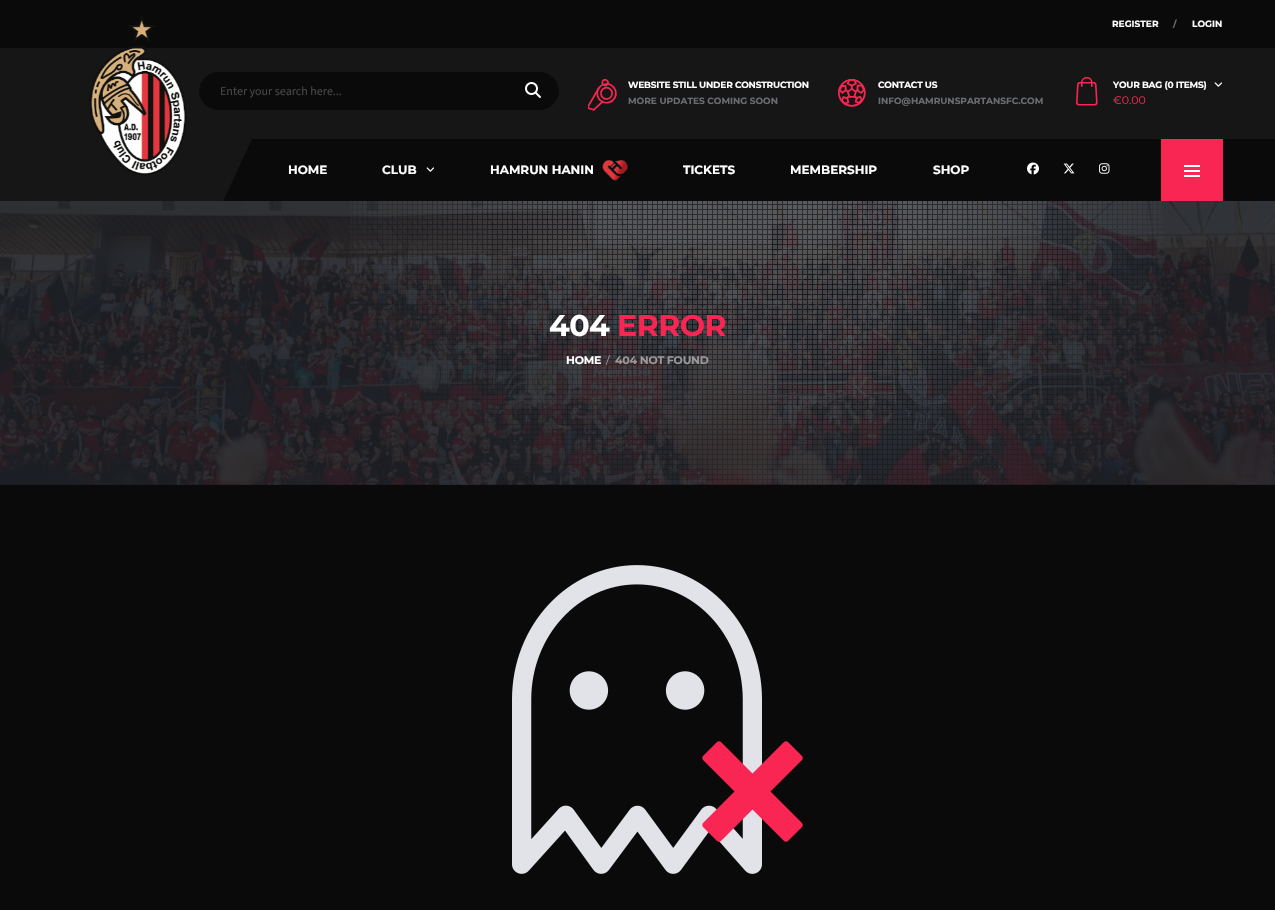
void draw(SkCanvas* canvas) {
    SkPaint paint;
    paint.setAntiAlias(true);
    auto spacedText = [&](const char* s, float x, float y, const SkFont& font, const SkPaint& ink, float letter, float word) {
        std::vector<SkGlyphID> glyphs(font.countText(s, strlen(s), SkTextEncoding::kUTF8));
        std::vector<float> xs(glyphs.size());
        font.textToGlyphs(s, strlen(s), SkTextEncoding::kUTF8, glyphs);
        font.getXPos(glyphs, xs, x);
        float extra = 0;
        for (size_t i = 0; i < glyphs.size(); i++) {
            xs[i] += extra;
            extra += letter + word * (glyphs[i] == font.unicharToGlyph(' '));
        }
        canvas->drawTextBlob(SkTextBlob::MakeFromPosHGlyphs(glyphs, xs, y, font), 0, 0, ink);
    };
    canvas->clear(0xFF0A0A0A);
    paint.setColor(0xFF161616);
    canvas->drawRect(SkRect::MakeXYWH(0, 48, 1275, 153), paint);
    SkFont font1(fontMgr->matchFamilyStyle("Montserrat", SkFontStyle::Bold()), 9);
    font1.setSubpixel(true);
    paint.setColor(0xFFFFFFFF);
    canvas->drawString("REGISTER", 1112, 27, font1, paint);
    paint.setColor(0xFF6B6D70);
    canvas->drawString("/", 1173, 27, font1, paint);
    paint.setColor(0xFFFFFFFF);
    canvas->drawString("LOGIN", 1192, 27, font1, paint);
    paint.setColor(0xFF0A0A0A);
    canvas->drawRoundRect(SkRect::MakeXYWH(199.5f, 72.5f, 359, 37), 18.5f, 18.5f, paint);
    paint.setStyle(SkPaint::kStroke_Style);
    paint.setStrokeWidth(1);
    canvas->drawRoundRect(SkRect::MakeXYWH(199.5f, 72.5f, 359, 37), 18.5f, 18.5f, paint);
    SkFont font2(fontMgr->matchFamilyStyle("Source Sans 3", SkFontStyle::Normal()), 12);
    font2.setSubpixel(true);
    paint.setStyle(SkPaint::kFill_Style);
    paint.setColor(0xFF474747);
    canvas->drawString("Enter your search here...", 220, 95, font2, paint);
    canvas->drawImageRect(SkImages::DeferredFromEncodedData(SkData::MakeFromFileName("img1.png")), SkRect::MakeXYWH(525, 82, 16, 16), SkSamplingOptions());
    canvas->drawImageRect(SkImages::DeferredFromEncodedData(SkData::MakeFromFileName("img2.png")), SkRect::MakeXYWH(588, 79, 29, 32), SkSamplingOptions());
    paint.setColor(0xFFFFFFFF);
    spacedText("WEBSITE STILL UNDER CONSTRUCTION", 628, 88, font1, paint, -0.2f, 0);
    paint.setColor(0xFF6B6D70);
    canvas->drawString("MORE UPDATES COMING SOON", 628, 104, font1, paint);
    canvas->drawImageRect(SkImages::DeferredFromEncodedData(SkData::MakeFromFileName("img3.png")), SkRect::MakeXYWH(838, 79, 28, 28), SkSamplingOptions());
    paint.setColor(0xFFFFFFFF);
    spacedText("CONTACT US", 878, 88, font1, paint, -0.2f, 0);
    paint.setColor(0xFF6B6D70);
    canvas->drawString("INFO@HAMRUNSPARTANSFC.COM", 878, 104, font1, paint);
    canvas->drawImageRect(SkImages::DeferredFromEncodedData(SkData::MakeFromFileName("img5.png")), SkRect::MakeXYWH(1076, 82, 22, 24), SkSamplingOptions());
    canvas->drawImageRect(SkImages::DeferredFromEncodedData(SkData::MakeFromFileName("img4.png")), SkRect::MakeXYWH(1081, 77, 12, 10), SkSamplingOptions());
    paint.setColor(0xFFFFFFFF);
    spacedText("YOUR BAG (0 ITEMS)", 1113, 88, font1, paint, -0.2f, 0);
    canvas->drawImageRect(SkImages::DeferredFromEncodedData(SkData::MakeFromFileName("img6.png")), SkRect::MakeXYWH(1214, 82, 8, 5), SkSamplingOptions());
    SkFont font3(fontMgr->matchFamilyStyle("Montserrat", SkFontStyle(100, SkFontStyle::kNormal_Width, SkFontStyle::kUpright_Slant)), 11);
    font3.setSubpixel(true);
    paint.setColor(0xFFF92552);
    canvas->drawString("€0.00", 1113, 104, font3, paint);
    paint.setColor(0xFF0A0A0A);
    canvas->drawRect(SkRect::MakeXYWH(223, 139, 938, 62), paint);
    paint.setColor(0xFF161616);
    canvas->drawPath(SkPathBuilder().moveTo(42, 139).lineTo(252, 139).lineTo(223, 201).lineTo(13, 201).close().detach(), paint);
    canvas->drawImageRect(SkImages::DeferredFromEncodedData(SkData::MakeFromFileName("img7.png")), SkRect::MakeXYWH(89, 16, 98, 160), SkSamplingOptions());
    SkFont font4(fontMgr->matchFamilyStyle("Montserrat", SkFontStyle::Bold()), 12);
    font4.setSubpixel(true);
    paint.setColor(0xFFFFFFFF);
    canvas->drawString("HOME", 288, 174, font4, paint);
    canvas->drawString("CLUB", 382, 174, font4, paint);
    canvas->drawImageRect(SkImages::DeferredFromEncodedData(SkData::MakeFromFileName("img8.png")), SkRect::MakeXYWH(426, 167, 8, 5), SkSamplingOptions());
    canvas->drawString("HAMRUN HANIN", 490, 174, font4, paint);
    canvas->drawImageRect(SkImages::DeferredFromEncodedData(SkData::MakeFromFileName("img9.png")), SkRect::MakeXYWH(602, 159, 26, 22), SkSamplingOptions());
    canvas->drawString("TICKETS", 683, 174, font4, paint);
    canvas->drawString("MEMBERSHIP", 790, 174, font4, paint);
    canvas->drawString("SHOP", 933, 174, font4, paint);
    canvas->drawImageRect(SkImages::DeferredFromEncodedData(SkData::MakeFromFileName("img10.png")), SkRect::MakeXYWH(1027, 162, 12, 13), SkSamplingOptions());
    canvas->drawImageRect(SkImages::DeferredFromEncodedData(SkData::MakeFromFileName("img11.png")), SkRect::MakeXYWH(1063, 163, 12, 11), SkSamplingOptions());
    canvas->drawImageRect(SkImages::DeferredFromEncodedData(SkData::MakeFromFileName("img12.png")), SkRect::MakeXYWH(1099, 163, 11, 11), SkSamplingOptions());
    paint.setColor(0xFFF92552);
    canvas->drawRect(SkRect::MakeXYWH(1161, 139, 62, 62), paint);
    paint.setColor(0xFFFFFFFF);
    canvas->drawRect(SkRect::MakeXYWH(1184, 170, 16, 2), paint);
    canvas->drawRect(SkRect::MakeXYWH(1184, 165, 16, 2), paint);
    canvas->drawRect(SkRect::MakeXYWH(1184, 175, 16, 2), paint);
    paint.setColor(0xFF0A0A0A);
    canvas->drawRect(SkRect::MakeXYWH(1223, 139, 52, 62), paint);
    canvas->drawImageRect(SkImages::DeferredFromEncodedData(SkData::MakeFromFileName("img13.png")), SkRect::MakeXYWH(0, 201, 1275, 284), SkSamplingOptions());
    canvas->drawImageRect(SkImages::DeferredFromEncodedData(SkData::MakeFromFileName("img14.png")), SkRect::MakeXYWH(350, 201, 814, 283), SkSamplingOptions());
    SkFont font5(fontMgr->matchFamilyStyle("Montserrat", SkFontStyle::Bold()), 30);
    font5.setSubpixel(true);
    paint.setColor(0xFFFFFFFF);
    spacedText("404", 549, 336, font5, paint, -0.5f, 0);
    paint.setColor(0xFFF92552);
    spacedText("ERROR", 617, 336, font5, paint, -0.5f, 0);
    SkFont font6(fontMgr->matchFamilyStyle("Montserrat", SkFontStyle::Bold()), 11);
    font6.setSubpixel(true);
    paint.setColor(0xFFFFFFFF);
    spacedText("HOME", 566, 364, font6, paint, -0.25f, 0);
    paint.setColor(0xFF9E9CAA);
    spacedText("/", 606, 364, font3, paint, -0.25f, 0);
    paint.setColor(0xFF9A9899);
    spacedText("404 NOT FOUND", 615, 364, font6, paint, -0.25f, 0);
    canvas->drawImageRect(SkImages::DeferredFromEncodedData(SkData::MakeFromFileName("img15.png")), SkRect::MakeXYWH(512, 565, 250, 309), SkSamplingOptions());
    paint.setColor(0xFFF92552);
    canvas->drawPath(SkPathBuilder().moveTo(721, 742).lineTo(802, 823).cubicTo(803, 824, 803, 826, 802, 827).lineTo(788, 841).cubicTo(787, 842, 785, 842, 784, 841).lineTo(703, 760).cubicTo(702, 759, 702, 757, 703, 756).lineTo(717, 742).cubicTo(718, 741, 720, 741, 721, 742).close().detach(), paint);
    canvas->drawPath(SkPathBuilder().moveTo(703, 823).lineTo(784, 742).cubicTo(785, 741, 787, 741, 788, 742).lineTo(802, 756).cubicTo(803, 757, 803, 759, 802, 760).lineTo(721, 841).cubicTo(720, 842, 718, 842, 717, 841).lineTo(703, 827).cubicTo(702, 826, 702, 824, 703, 823).close().detach(), paint);
}
